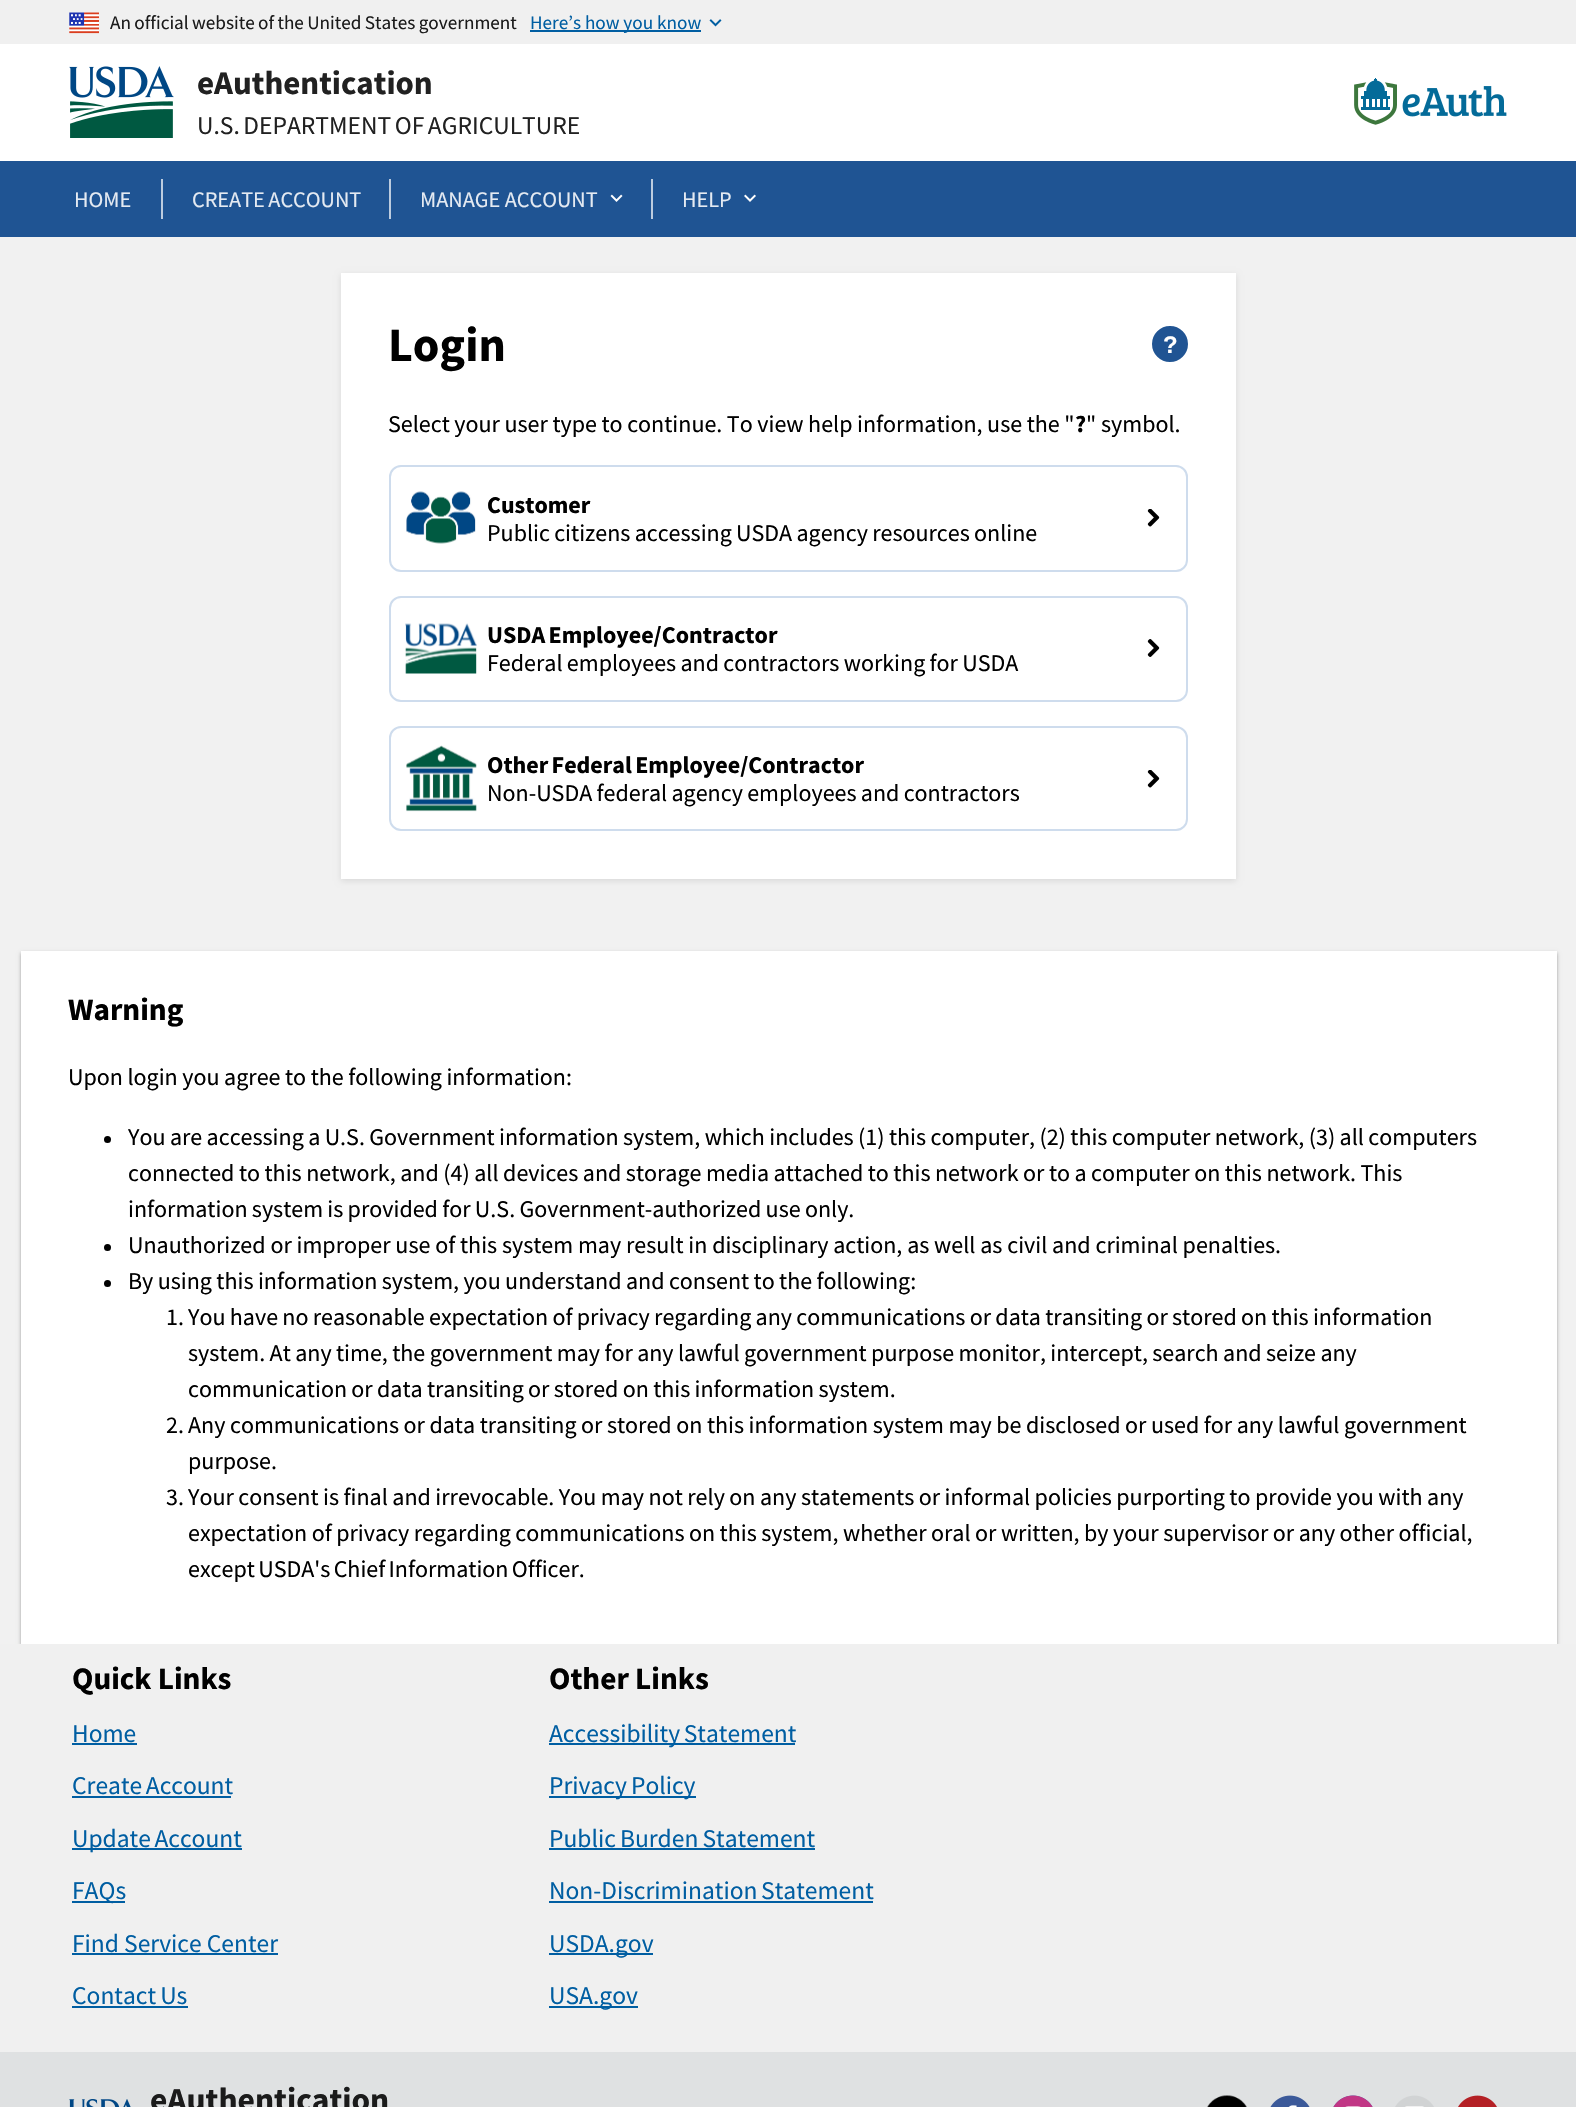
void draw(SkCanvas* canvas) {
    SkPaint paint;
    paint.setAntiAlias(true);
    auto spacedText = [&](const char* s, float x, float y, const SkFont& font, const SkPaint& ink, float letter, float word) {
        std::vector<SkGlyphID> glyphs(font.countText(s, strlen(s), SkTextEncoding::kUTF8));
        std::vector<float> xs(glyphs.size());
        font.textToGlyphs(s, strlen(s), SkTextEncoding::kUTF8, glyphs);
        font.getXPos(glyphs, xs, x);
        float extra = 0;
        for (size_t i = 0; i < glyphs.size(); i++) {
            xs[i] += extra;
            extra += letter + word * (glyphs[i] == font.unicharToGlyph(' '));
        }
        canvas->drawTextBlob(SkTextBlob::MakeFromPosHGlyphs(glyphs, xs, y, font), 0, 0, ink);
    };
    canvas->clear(0xFFFFFFFF);
    paint.setColor(0xFFF0F0F0);
    canvas->drawRect(SkRect::MakeXYWH(0, 0, 1576, 44), paint);
    canvas->drawImageRect(SkImages::DeferredFromEncodedData(SkData::MakeFromFileName("img1.png")), SkRect::MakeXYWH(69, 12, 30, 22), SkSamplingOptions());
    SkFont font1(fontMgr->matchFamilyStyle("Source Sans Pro", SkFontStyle::Normal()), 19.2f);
    font1.setSubpixel(true);
    paint.setColor(0xFF1B1B1B);
    spacedText("An official website of the United States government", 110, 29, font1, paint, 0, -0.5f);
    paint.setColor(0xFF005EA2);
    canvas->drawRect(SkRect::MakeXYWH(530, 30, 171, 2), paint);
    canvas->drawString("Here’s how you know", 530, 29, font1, paint);
    canvas->drawImageRect(SkImages::DeferredFromEncodedData(SkData::MakeFromFileName("img2.png")), SkRect::MakeXYWH(709, 19, 13, 8), SkSamplingOptions());
    canvas->drawImageRect(SkImages::DeferredFromEncodedData(SkData::MakeFromFileName("img3.png")), SkRect::MakeXYWH(69, 66, 105, 72), SkSamplingOptions());
    SkFont font2(fontMgr->matchFamilyStyle("Source Sans Pro", SkFontStyle::Bold()), 33);
    font2.setSubpixel(true);
    paint.setColor(0xFF212121);
    canvas->drawString("eAuthentication", 197, 94, font2, paint);
    SkFont font3(fontMgr->matchFamilyStyle("Source Sans Pro", SkFontStyle::Normal()), 25.5f);
    font3.setSubpixel(true);
    spacedText("U.S. DEPARTMENT OF AGRICULTURE", 197, 134, font3, paint, 0, -1.5f);
    canvas->drawImageRect(SkImages::DeferredFromEncodedData(SkData::MakeFromFileName("img4.png")), SkRect::MakeXYWH(1354, 78, 153, 47), SkSamplingOptions());
    paint.setColor(0xFF1F5493);
    canvas->drawRect(SkRect::MakeXYWH(0, 161, 1576, 76), paint);
    SkFont font4(fontMgr->matchFamilyStyle("Source Sans Pro", SkFontStyle::Normal()), 22.25f);
    font4.setSubpixel(true);
    paint.setColor(0xFFE4EAF2);
    canvas->drawString("HOME", 74, 207, font4, paint);
    paint.setColor(0xFFBCCCDF);
    canvas->drawRect(SkRect::MakeXYWH(161, 179, 2, 40), paint);
    paint.setColor(0xFFE4EAF2);
    spacedText("CREATE ACCOUNT", 192, 207, font4, paint, 0, -1);
    paint.setColor(0xFFBCCCDF);
    canvas->drawRect(SkRect::MakeXYWH(389, 179, 2, 40), paint);
    canvas->drawImageRect(SkImages::DeferredFromEncodedData(SkData::MakeFromFileName("img5.png")), SkRect::MakeXYWH(610, 194, 13, 8), SkSamplingOptions());
    paint.setColor(0xFFE4EAF2);
    canvas->drawString("MANAGE ACCOUNT", 420, 207, font4, paint);
    paint.setColor(0xFFBCCCDF);
    canvas->drawRect(SkRect::MakeXYWH(651, 179, 2, 40), paint);
    canvas->drawImageRect(SkImages::DeferredFromEncodedData(SkData::MakeFromFileName("img6.png")), SkRect::MakeXYWH(744, 194, 12, 8), SkSamplingOptions());
    paint.setColor(0xFFE4EAF2);
    canvas->drawString("HELP", 682, 207, font4, paint);
    paint.setColor(0xFFF1F1F1);
    canvas->drawRect(SkRect::MakeXYWH(0, 237, 1576, 1407), paint);
    paint.setColor(0x1A000000);
    paint.setMaskFilter(SkMaskFilter::MakeBlur(kNormal_SkBlurStyle, 3));
    canvas->drawRect(SkRect::MakeXYWH(341, 275, 895, 606), paint);
    paint.setMaskFilter(nullptr);
    paint.setColor(0xFFFFFFFF);
    canvas->drawRect(SkRect::MakeXYWH(341, 273, 895, 606), paint);
    SkFont font5(fontMgr->matchFamilyStyle("Source Sans Pro", SkFontStyle::Bold()), 48);
    font5.setSubpixel(true);
    paint.setColor(0xFF000000);
    canvas->drawString("Login", 388, 361, font5, paint);
    paint.setColor(0xFF205493);
    canvas->drawCircle(1170, 344, 16.5f, paint);
    paint.setStyle(SkPaint::kStroke_Style);
    paint.setStrokeWidth(3);
    canvas->drawCircle(1170, 344, 16.5f, paint);
    SkFont font6(fontMgr->matchFamilyStyle("Liberation Sans", SkFontStyle::Bold()), 24);
    font6.setSubpixel(true);
    paint.setStyle(SkPaint::kFill_Style);
    paint.setColor(0xFFFFFFFF);
    canvas->drawString("?", 1163, 353, font6, paint);
    SkFont font7(fontMgr->matchFamilyStyle("Source Sans Pro", SkFontStyle::Normal()), 24);
    font7.setSubpixel(true);
    paint.setColor(0xFF000000);
    spacedText("Select your user type to continue. To view help information, use the \"", 388, 432, font7, paint, 0, -0.25f);
    SkFont font8(fontMgr->matchFamilyStyle("Source Sans Pro", SkFontStyle::Bold()), 24);
    font8.setSubpixel(true);
    canvas->drawString("?", 1075, 432, font8, paint);
    canvas->drawString("\" symbol.", 1086, 432, font7, paint);
    canvas->drawImageRect(SkImages::DeferredFromEncodedData(SkData::MakeFromFileName("img7.png")), SkRect::MakeXYWH(1147, 509, 13, 18), SkSamplingOptions());
    paint.setStyle(SkPaint::kStroke_Style);
    paint.setStrokeWidth(2);
    paint.setColor(0xFFCEDCED);
    canvas->drawRoundRect(SkRect::MakeXYWH(390, 466, 797, 105), 11, 11, paint);
    canvas->drawImageRect(SkImages::DeferredFromEncodedData(SkData::MakeFromFileName("img8.png")), SkRect::MakeXYWH(406, 491, 70, 53), SkSamplingOptions());
    paint.setStyle(SkPaint::kFill_Style);
    paint.setColor(0xFF000000);
    canvas->drawString("Customer", 487, 513, font8, paint);
    spacedText("Public citizens accessing USDA agency resources online", 487, 541, font7, paint, 0, -0.5f);
    canvas->drawImageRect(SkImages::DeferredFromEncodedData(SkData::MakeFromFileName("img9.png")), SkRect::MakeXYWH(1147, 639, 13, 18), SkSamplingOptions());
    paint.setStyle(SkPaint::kStroke_Style);
    paint.setColor(0xFFCEDCED);
    canvas->drawRoundRect(SkRect::MakeXYWH(390, 597, 797, 104), 11, 11, paint);
    canvas->drawImageRect(SkImages::DeferredFromEncodedData(SkData::MakeFromFileName("img10.png")), SkRect::MakeXYWH(405, 623, 72, 51), SkSamplingOptions());
    paint.setStyle(SkPaint::kFill_Style);
    paint.setColor(0xFF000000);
    spacedText("USDA Employee/Contractor", 487, 643, font8, paint, 0, -1.5f);
    spacedText("Federal employees and contractors working for USDA", 487, 671, font7, paint, 0, -0.5f);
    canvas->drawImageRect(SkImages::DeferredFromEncodedData(SkData::MakeFromFileName("img7.png")), SkRect::MakeXYWH(1147, 770, 13, 18), SkSamplingOptions());
    paint.setStyle(SkPaint::kStroke_Style);
    paint.setColor(0xFFCEDCED);
    canvas->drawRoundRect(SkRect::MakeXYWH(390, 727, 797, 103), 11, 11, paint);
    canvas->drawImageRect(SkImages::DeferredFromEncodedData(SkData::MakeFromFileName("img11.png")), SkRect::MakeXYWH(406, 745, 71, 67), SkSamplingOptions());
    paint.setStyle(SkPaint::kFill_Style);
    paint.setColor(0xFF000000);
    spacedText("Other Federal Employee/Contractor", 487, 773, font8, paint, 0, -1.5f);
    spacedText("Non-USDA federal agency employees and contractors", 487, 801, font7, paint, 0, -0.5f);
    paint.setColor(0x3D000000);
    paint.setMaskFilter(SkMaskFilter::MakeBlur(kNormal_SkBlurStyle, 1.5f));
    canvas->drawRect(SkRect::MakeXYWH(21, 953, 1536, 693), paint);
    paint.setMaskFilter(nullptr);
    paint.setColor(0x1F000000);
    paint.setMaskFilter(SkMaskFilter::MakeBlur(kNormal_SkBlurStyle, 2));
    canvas->drawRect(SkRect::MakeXYWH(21, 953, 1536, 693), paint);
    paint.setMaskFilter(nullptr);
    paint.setColor(0xFFFFFFFF);
    canvas->drawRect(SkRect::MakeXYWH(21, 951, 1536, 693), paint);
    SkFont font9(fontMgr->matchFamilyStyle("Source Sans Pro", SkFontStyle::Bold()), 31.25f);
    font9.setSubpixel(true);
    paint.setColor(0xFF000000);
    canvas->drawString("Warning", 68, 1020, font9, paint);
    spacedText("Upon login you agree to the following information:", 68, 1085, font7, paint, 0, -0.25f);
    canvas->drawCircle(107.5f, 1139.5f, 3.5f, paint);
    spacedText("You are accessing a U.S. Government information system, which includes (1) this computer, (2) this computer network, (3) all computers", 128, 1145, font7, paint, 0, -0.4f);
    spacedText("connected to this network, and (4) all devices and storage media attached to this network or to a computer on this network. This", 128, 1181, font7, paint, 0, -0.3f);
    spacedText("information system is provided for U.S. Government-authorized use only.", 128, 1217, font7, paint, 0, -0.5f);
    canvas->drawCircle(107.5f, 1247.5f, 3.5f, paint);
    canvas->drawString("Unauthorized or improper use of this system may result in disciplinary action, as well as civil and criminal penalties.", 128, 1253, font7, paint);
    canvas->drawCircle(107.5f, 1283.5f, 3.5f, paint);
    spacedText("By using this information system, you understand and consent to the following:", 128, 1289, font7, paint, 0, -0.4f);
    canvas->drawString("1.", 166, 1325, font7, paint);
    spacedText("You have no reasonable expectation of privacy regarding any communications or data transiting or stored on this information", 188, 1325, font7, paint, 0, -0.5f);
    spacedText("system. At any time, the government may for any lawful government purpose monitor, intercept, search and seize any", 188, 1361, font7, paint, 0, -0.4f);
    spacedText("communication or data transiting or stored on this information system.", 188, 1397, font7, paint, 0, -0.5f);
    canvas->drawString("2.", 166, 1433, font7, paint);
    spacedText("Any communications or data transiting or stored on this information system may be disclosed or used for any lawful government", 188, 1433, font7, paint, 0, -0.25f);
    canvas->drawString("purpose.", 188, 1469, font7, paint);
    canvas->drawString("3.", 166, 1505, font7, paint);
    spacedText("Your consent is final and irrevocable. You may not rely on any statements or informal policies purporting to provide you with any", 188, 1505, font7, paint, 0, -0.3f);
    spacedText("expectation of privacy regarding communications on this system, whether oral or written, by your supervisor or any other official,", 188, 1541, font7, paint, 0, -0.3f);
    spacedText("except USDA's Chief Information Officer.", 188, 1577, font7, paint, 0, -1.5f);
    paint.setColor(0xFFF0F0F0);
    canvas->drawRect(SkRect::MakeXYWH(0, 1644, 1576, 408), paint);
    paint.setColor(0xFF000000);
    canvas->drawString("Quick Links", 72, 1689, font9, paint);
    paint.setColor(0xFF005EA2);
    canvas->drawString("Home", 72, 1742, font3, paint);
    canvas->drawRect(SkRect::MakeXYWH(72, 1743, 65, 2), paint);
    spacedText("Create Account", 72, 1794, font3, paint, 0, -1.5f);
    canvas->drawRect(SkRect::MakeXYWH(72, 1796, 159, 2), paint);
    canvas->drawRect(SkRect::MakeXYWH(72, 1848, 170, 2), paint);
    spacedText("Update Account", 72, 1847, font3, paint, 0, -1.5f);
    canvas->drawRect(SkRect::MakeXYWH(72, 1901, 53, 2), paint);
    canvas->drawString("FAQs", 72, 1899, font3, paint);
    canvas->drawString("Find Service Center", 72, 1952, font3, paint);
    canvas->drawRect(SkRect::MakeXYWH(72, 1953, 206, 2), paint);
    spacedText("Contact Us", 72, 2004, font3, paint, 0, -1);
    canvas->drawRect(SkRect::MakeXYWH(72, 2006, 116, 2), paint);
    paint.setColor(0xFF000000);
    canvas->drawString("Other Links", 549, 1689, font9, paint);
    paint.setColor(0xFF005EA2);
    canvas->drawRect(SkRect::MakeXYWH(549, 1743, 246, 2), paint);
    spacedText("Accessibility Statement", 549, 1742, font3, paint, 0, -1.5f);
    canvas->drawRect(SkRect::MakeXYWH(549, 1796, 147, 2), paint);
    spacedText("Privacy Policy", 549, 1794, font3, paint, 0, -1);
    spacedText("Public Burden Statement", 549, 1847, font3, paint, 0, -1);
    canvas->drawRect(SkRect::MakeXYWH(549, 1848, 266, 2), paint);
    spacedText("Non-Discrimination Statement", 549, 1899, font3, paint, 0, -1.5f);
    canvas->drawRect(SkRect::MakeXYWH(549, 1901, 324, 2), paint);
    canvas->drawRect(SkRect::MakeXYWH(549, 1953, 104, 2), paint);
    canvas->drawString("USDA.gov", 549, 1952, font3, paint);
    canvas->drawRect(SkRect::MakeXYWH(549, 2006, 89, 2), paint);
    canvas->drawString("USA.gov", 549, 2004, font3, paint);
    paint.setColor(0xFFDFE1E2);
    canvas->drawRect(SkRect::MakeXYWH(0, 2052, 1576, 55), paint);
    canvas->drawImageRect(SkImages::DeferredFromEncodedData(SkData::MakeFromFileName("img12.png")), SkRect::MakeXYWH(69, 2099, 62, 8), SkSamplingOptions());
    SkFont font10(fontMgr->matchFamilyStyle("Source Sans Pro", SkFontStyle::Bold()), 33.5f);
    font10.setSubpixel(true);
    paint.setColor(0xFF1B1B1B);
    canvas->drawString("eAuthentication", 150, 2111, font10, paint);
    canvas->drawImageRect(SkImages::DeferredFromEncodedData(SkData::MakeFromFileName("img13.png")), SkRect::MakeXYWH(1207, 2095, 40, 12), SkSamplingOptions());
    canvas->drawImageRect(SkImages::DeferredFromEncodedData(SkData::MakeFromFileName("img14.png")), SkRect::MakeXYWH(1270, 2095, 40, 12), SkSamplingOptions());
    canvas->drawImageRect(SkImages::DeferredFromEncodedData(SkData::MakeFromFileName("img15.png")), SkRect::MakeXYWH(1333, 2095, 40, 12), SkSamplingOptions());
    canvas->drawImageRect(SkImages::DeferredFromEncodedData(SkData::MakeFromFileName("img16.png")), SkRect::MakeXYWH(1395, 2095, 39, 12), SkSamplingOptions());
    canvas->drawImageRect(SkImages::DeferredFromEncodedData(SkData::MakeFromFileName("img17.png")), SkRect::MakeXYWH(1458, 2095, 39, 12), SkSamplingOptions());
}
